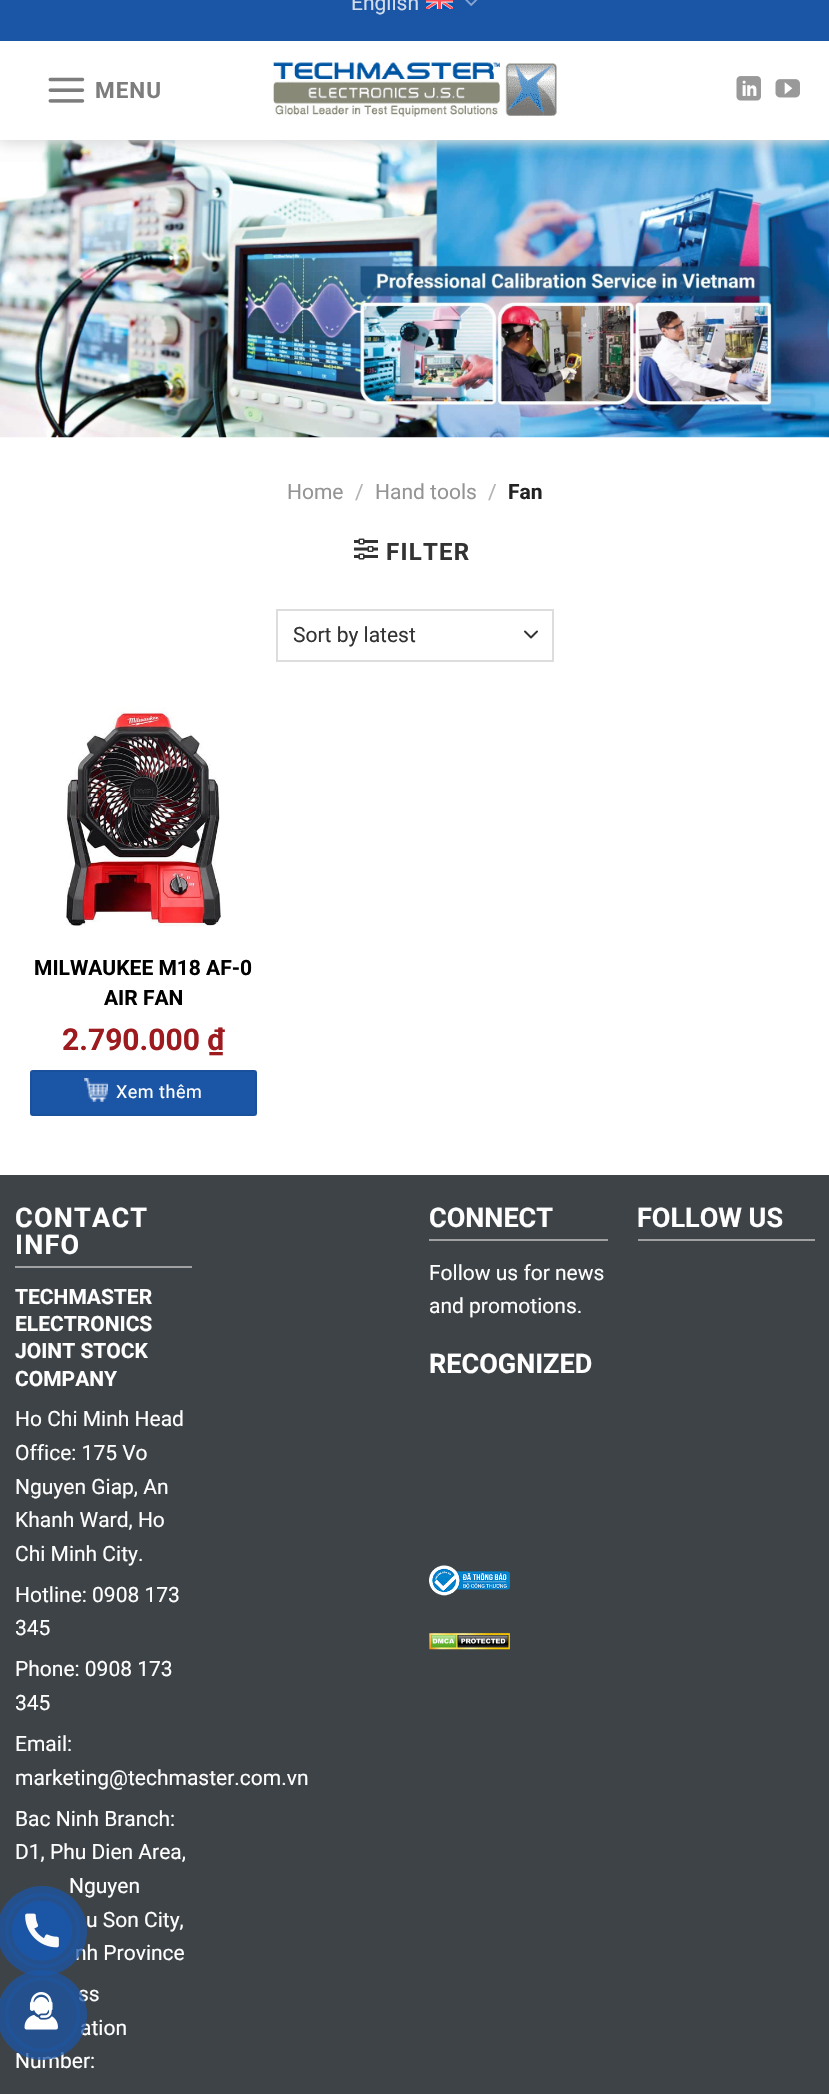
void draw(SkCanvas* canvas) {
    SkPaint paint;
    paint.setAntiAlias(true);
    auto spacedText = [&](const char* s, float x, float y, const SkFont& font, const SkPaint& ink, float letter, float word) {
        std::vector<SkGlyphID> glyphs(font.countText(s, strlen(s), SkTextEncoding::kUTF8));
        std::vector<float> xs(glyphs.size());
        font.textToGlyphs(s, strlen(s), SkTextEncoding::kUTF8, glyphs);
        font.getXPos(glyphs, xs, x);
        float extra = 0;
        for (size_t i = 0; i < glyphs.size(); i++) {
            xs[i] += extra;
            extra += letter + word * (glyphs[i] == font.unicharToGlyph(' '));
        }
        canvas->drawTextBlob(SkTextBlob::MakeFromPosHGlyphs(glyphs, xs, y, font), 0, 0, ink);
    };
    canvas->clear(0xFFFFFFFF);
    canvas->drawImageRect(SkImages::DeferredFromEncodedData(SkData::MakeFromFileName("img7.png")), SkRect::MakeXYWH(0, 140, 829, 298), SkSamplingOptions());
    canvas->save();
    canvas->clipPath(SkPathBuilder(SkPathFillType::kEvenOdd).moveTo(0, 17).lineTo(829, 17).lineTo(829, 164).lineTo(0, 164).close().moveTo(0, 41).lineTo(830, 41).lineTo(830, 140).lineTo(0, 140).close().detach(), true);
    paint.setColor(0xFFDDDDDD);
    paint.setMaskFilter(SkMaskFilter::MakeBlur(kNormal_SkBlurStyle, 7.5f));
    canvas->drawRect(SkRect::MakeXYWH(0, 41, 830, 99), paint);
    paint.setMaskFilter(nullptr);
    paint.setMaskFilter(SkMaskFilter::MakeBlur(kNormal_SkBlurStyle, 7.5f));
    canvas->drawRect(SkRect::MakeXYWH(0, 41, 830, 99), paint);
    paint.setMaskFilter(nullptr);
    canvas->restore();
    paint.setColor(0xFF1B55A6);
    canvas->drawRect(SkRect::MakeXYWH(0, 0, 829, 41), paint);
    SkFont font1(fontMgr->matchFamilyStyle("Roboto", SkFontStyle::Normal()), 21);
    font1.setSubpixel(true);
    paint.setColor(0xFFD1DDED);
    canvas->drawString("English", 351, 10, font1, paint);
    canvas->drawImageRect(SkImages::DeferredFromEncodedData(SkData::MakeFromFileName("img1.png")), SkRect::MakeXYWH(426, 0, 27, 9), SkSamplingOptions());
    canvas->drawImageRect(SkImages::DeferredFromEncodedData(SkData::MakeFromFileName("img2.png")), SkRect::MakeXYWH(465, 0, 13, 6), SkSamplingOptions());
    canvas->drawImageRect(SkImages::DeferredFromEncodedData(SkData::MakeFromFileName("img3.png")), SkRect::MakeXYWH(48, 77, 37, 26), SkSamplingOptions());
    SkFont font2(fontMgr->matchFamilyStyle("Roboto", SkFontStyle::Bold()), 22.5f);
    font2.setSubpixel(true);
    paint.setColor(0xFF7D7D7D);
    spacedText("MENU", 95, 98, font2, paint, 1, 0);
    canvas->drawImageRect(SkImages::DeferredFromEncodedData(SkData::MakeFromFileName("img4.png")), SkRect::MakeXYWH(273, 62, 284, 55), SkSamplingOptions());
    canvas->drawImageRect(SkImages::DeferredFromEncodedData(SkData::MakeFromFileName("img5.png")), SkRect::MakeXYWH(736, 76, 25, 25), SkSamplingOptions());
    canvas->drawImageRect(SkImages::DeferredFromEncodedData(SkData::MakeFromFileName("img6.png")), SkRect::MakeXYWH(775, 79, 25, 19), SkSamplingOptions());
    paint.setColor(0xFF949494);
    canvas->drawString("Home", 287, 499, font1, paint);
    paint.setColor(0xFFB2B2B2);
    canvas->drawString("/", 355, 499, font1, paint);
    paint.setColor(0xFF949494);
    canvas->drawString("Hand tools", 375, 499, font1, paint);
    paint.setColor(0xFFB2B2B2);
    canvas->drawString("/", 488, 499, font1, paint);
    SkFont font3(fontMgr->matchFamilyStyle("Roboto", SkFontStyle::Bold()), 21);
    font3.setSubpixel(true);
    paint.setColor(0xFF222222);
    canvas->drawString("Fan", 508, 499, font3, paint);
    canvas->drawImageRect(SkImages::DeferredFromEncodedData(SkData::MakeFromFileName("img8.png")), SkRect::MakeXYWH(354, 538, 24, 22), SkSamplingOptions());
    SkFont font4(fontMgr->matchFamilyStyle("Roboto", SkFontStyle::Bold()), 24);
    font4.setSubpixel(true);
    paint.setColor(0xFF333333);
    spacedText("FILTER", 386, 560, font4, paint, 1.25f, 0);
    paint.setStyle(SkPaint::kStroke_Style);
    paint.setStrokeWidth(2);
    paint.setStrokeCap(SkPaint::kRound_Cap);
    paint.setStrokeJoin(SkPaint::kRound_Join);
    canvas->drawPath(SkPathBuilder().moveTo(525, 631.5f).lineTo(531, 637.5f).lineTo(537, 631.5f).detach(), paint);
    paint.setStrokeCap(SkPaint::kButt_Cap);
    paint.setStrokeJoin(SkPaint::kMiter_Join);
    paint.setColor(0xFFDDDDDD);
    canvas->drawRect(SkRect::MakeXYWH(277, 610, 276, 51), paint);
    paint.setStyle(SkPaint::kFill_Style);
    paint.setColor(0xFF333333);
    canvas->drawString("Sort by latest", 293, 642, font1, paint);
    canvas->drawImageRect(SkImages::DeferredFromEncodedData(SkData::MakeFromFileName("img9.png")), SkRect::MakeXYWH(65, 707, 157, 220), SkSamplingOptions());
    paint.setColor(0xFF000000);
    canvas->drawString("MILWAUKEE M18 AF-0", 34, 975, font3, paint);
    canvas->drawString("AIR FAN", 104, 1005, font3, paint);
    SkFont font5(fontMgr->matchFamilyStyle("Roboto", SkFontStyle::Bold()), 30);
    font5.setSubpixel(true);
    paint.setColor(0xFF9D1A1F);
    canvas->drawString("2.790.000 ₫", 62, 1050, font5, paint);
    paint.setColor(0xFF1B55A6);
    canvas->drawRoundRect(SkRect::MakeXYWH(30, 1070, 227, 46), 3, 3, paint);
    paint.setStyle(SkPaint::kStroke_Style);
    paint.setColor(0x0D000000);
    canvas->drawRect(SkRect::MakeXYWH(31, 1071, 225, 44), paint);
    canvas->drawImageRect(SkImages::DeferredFromEncodedData(SkData::MakeFromFileName("img10.png")), SkRect::MakeXYWH(84, 1078, 24, 24), SkSamplingOptions());
    SkFont font6(fontMgr->matchFamilyStyle("Roboto", SkFontStyle::Normal()), 18);
    font6.setSubpixel(true);
    paint.setStyle(SkPaint::kFill_Style);
    paint.setColor(0xFFFFFFFF);
    spacedText("Xem thêm", 116, 1098, font6, paint, 0.5f, 0);
    paint.setColor(0xFF3E4347);
    canvas->drawRect(SkRect::MakeXYWH(0, 1175, 829, 919), paint);
    SkFont font7(fontMgr->matchFamilyStyle("Roboto", SkFontStyle::Bold()), 27);
    font7.setSubpixel(true);
    paint.setColor(0xFFFFFFFF);
    spacedText("CONTACT", 15, 1227, font7, paint, 1.25f, 0);
    spacedText("INFO", 15, 1254, font7, paint, 1.25f, 0);
    paint.setColor(0xFF9FA1A3);
    canvas->drawRect(SkRect::MakeXYWH(15, 1266, 177, 2), paint);
    paint.setColor(0xFFFFFFFF);
    canvas->drawString("TECHMASTER", 15, 1304, font3, paint);
    canvas->drawString("ELECTRONICS", 15, 1331, font3, paint);
    canvas->drawString("JOINT STOCK", 15, 1358, font3, paint);
    canvas->drawString("COMPANY", 15, 1386, font3, paint);
    canvas->drawString("Ho Chi Minh Head", 15, 1426, font1, paint);
    canvas->drawString("Office: 175 Vo", 15, 1460, font1, paint);
    canvas->drawString("Nguyen Giap, An", 15, 1494, font1, paint);
    canvas->drawString("Khanh Ward, Ho", 15, 1527, font1, paint);
    canvas->drawString("Chi Minh City.", 15, 1561, font1, paint);
    canvas->drawString("Hotline: 0908 173", 15, 1602, font1, paint);
    canvas->drawString("345", 15, 1635, font1, paint);
    canvas->drawString("Phone: 0908 173", 15, 1676, font1, paint);
    canvas->drawString("345", 15, 1710, font1, paint);
    canvas->drawString("Email:", 15, 1751, font1, paint);
    canvas->drawString("marketing@techmaster.com.vn", 15, 1785, font1, paint);
    canvas->drawString("Bac Ninh Branch:", 15, 1826, font1, paint);
    canvas->drawString("D1, Phu Dien Area,", 15, 1859, font1, paint);
    canvas->drawString("Nguyen", 69, 1893, font1, paint);
    canvas->drawString("u Son City,", 86, 1927, font1, paint);
    canvas->drawString("nh Province", 75, 1960, font1, paint);
    canvas->drawString("ss", 78, 2001, font1, paint);
    canvas->drawString("ation", 80, 2035, font1, paint);
    canvas->drawString("Number:", 15, 2068, font1, paint);
    canvas->drawString("CONNECT", 429, 1227, font7, paint);
    paint.setColor(0xFF9FA1A3);
    canvas->drawRect(SkRect::MakeXYWH(429, 1239, 179, 2), paint);
    paint.setColor(0xFFFFFFFF);
    canvas->drawString("Follow us for news", 429, 1280, font1, paint);
    canvas->drawString("and promotions.", 429, 1313, font1, paint);
    canvas->drawString("RECOGNIZED", 429, 1373, font7, paint);
    canvas->drawImageRect(SkImages::DeferredFromEncodedData(SkData::MakeFromFileName("img11.png")), SkRect::MakeXYWH(429, 1565, 81, 31), SkSamplingOptions());
    canvas->drawImageRect(SkImages::DeferredFromEncodedData(SkData::MakeFromFileName("img12.png")), SkRect::MakeXYWH(429, 1633, 81, 17), SkSamplingOptions());
    canvas->drawString("FOLLOW US", 637, 1227, font7, paint);
    paint.setColor(0xFF9FA1A3);
    canvas->drawRect(SkRect::MakeXYWH(638, 1239, 177, 2), paint);
    paint.setColor(0xBF1B55A6);
    canvas->drawCircle(42, 1931, 45, paint);
    canvas->drawImageRect(SkImages::DeferredFromEncodedData(SkData::MakeFromFileName("img13.png")), SkRect::MakeXYWH(12, 1901, 60, 60), SkSamplingOptions());
    paint.setStyle(SkPaint::kStroke_Style);
    paint.setStrokeWidth(3);
    paint.setColor(0x801B55A6);
    canvas->drawCircle(42.5f, 1930.5f, 36, paint);
    paint.setStyle(SkPaint::kFill_Style);
    paint.setColor(0xBF1B55A6);
    canvas->drawCircle(42, 2015, 45, paint);
    canvas->drawImageRect(SkImages::DeferredFromEncodedData(SkData::MakeFromFileName("img14.png")), SkRect::MakeXYWH(24, 1992, 34, 38), SkSamplingOptions());
    paint.setStyle(SkPaint::kStroke_Style);
    paint.setColor(0x801B55A6);
    canvas->drawCircle(42.5f, 2014.5f, 36, paint);
}
